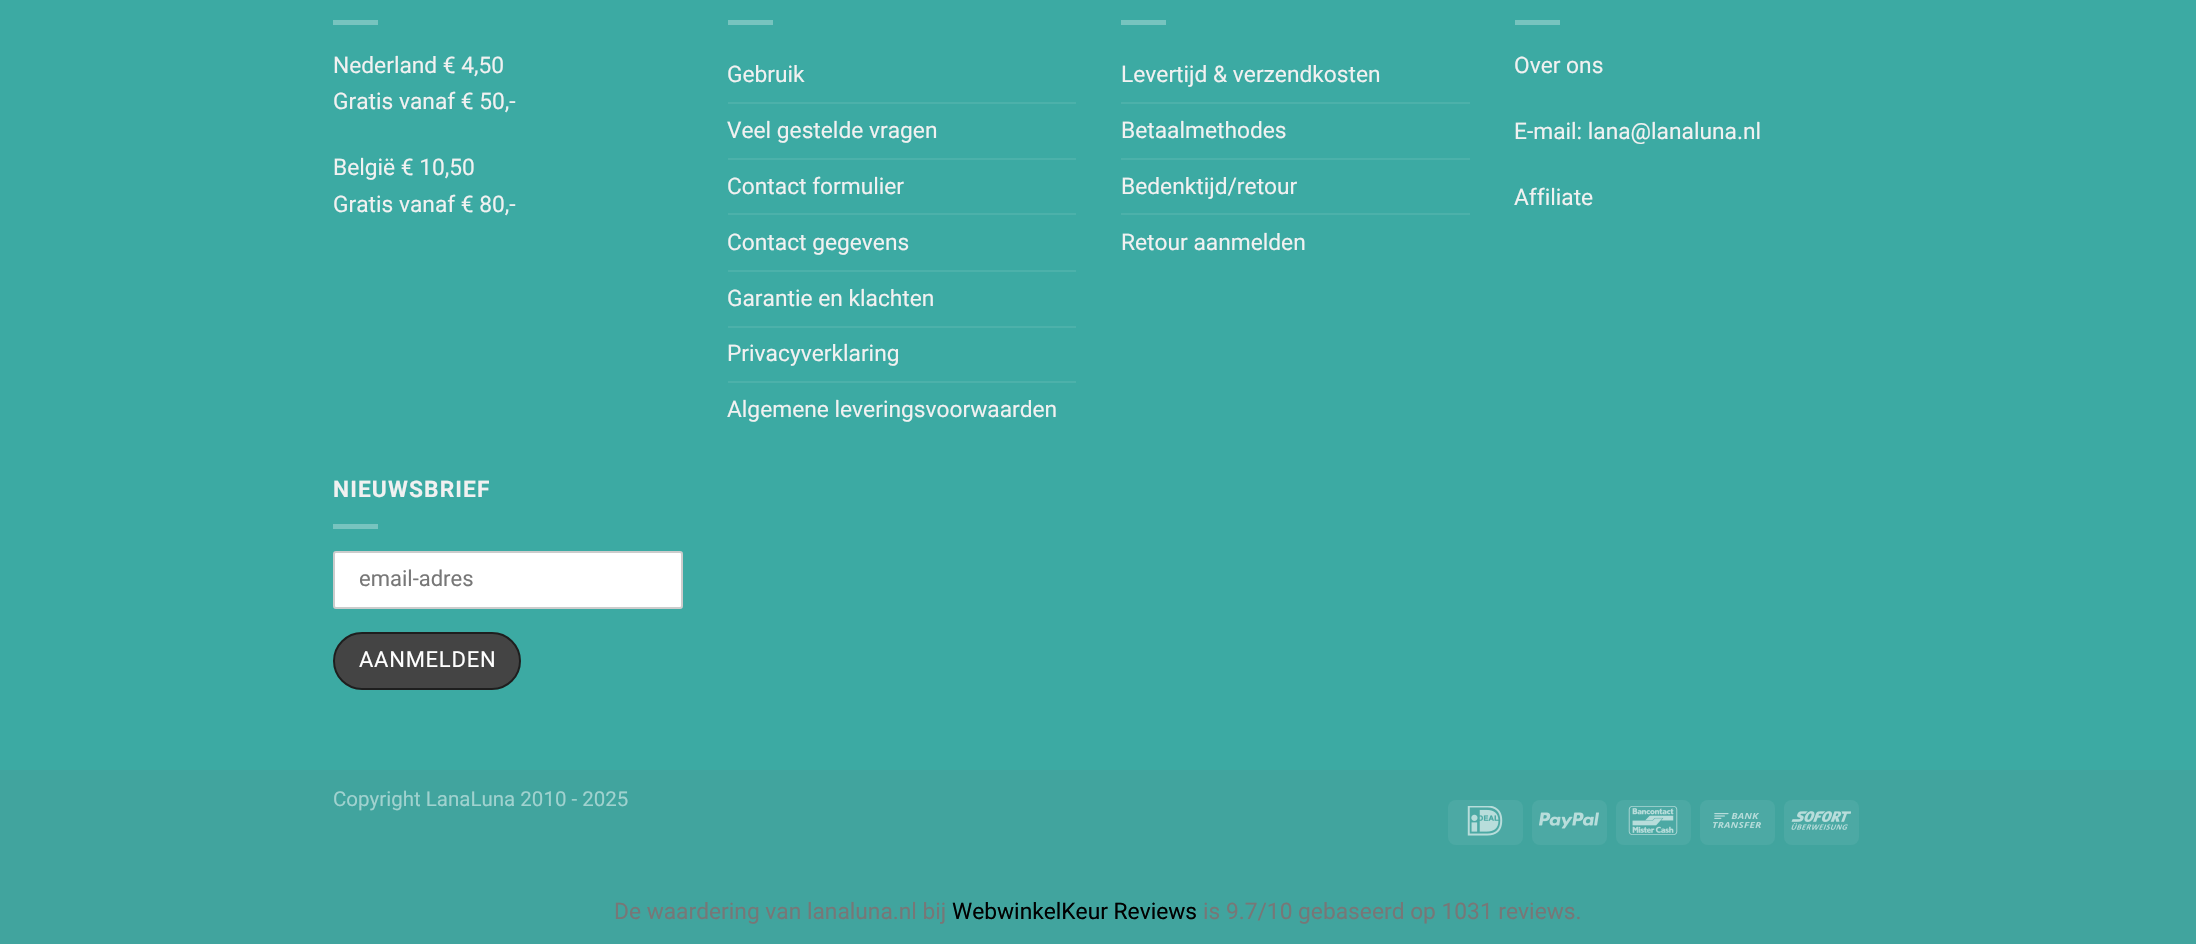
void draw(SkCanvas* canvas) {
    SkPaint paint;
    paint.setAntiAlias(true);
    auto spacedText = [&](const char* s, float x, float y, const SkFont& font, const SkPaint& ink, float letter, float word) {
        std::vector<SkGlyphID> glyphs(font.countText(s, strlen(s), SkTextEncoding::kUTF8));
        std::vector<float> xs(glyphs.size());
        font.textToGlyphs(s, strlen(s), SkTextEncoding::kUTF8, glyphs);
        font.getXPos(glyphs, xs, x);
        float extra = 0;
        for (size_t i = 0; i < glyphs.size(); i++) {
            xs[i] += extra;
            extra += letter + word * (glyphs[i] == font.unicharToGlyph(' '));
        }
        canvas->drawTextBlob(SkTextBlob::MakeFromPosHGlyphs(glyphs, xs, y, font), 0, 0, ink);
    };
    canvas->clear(0xFF41A49E);
    paint.setColor(0xFF3CAAA3);
    canvas->drawRect(SkRect::MakeXYWH(0, 0, 2196, 770), paint);
    paint.setColor(0xFF77C4BF);
    canvas->drawRect(SkRect::MakeXYWH(333, 20, 45, 5), paint);
    SkFont font1(fontMgr->matchFamilyStyle("Roboto", SkFontStyle::Normal()), 22.75f);
    font1.setSubpixel(true);
    paint.setColor(0xFFF1F1F1);
    canvas->drawString("Nederland € 4,50", 333, 73, font1, paint);
    canvas->drawString("Gratis vanaf € 50,-", 333, 109, font1, paint);
    canvas->drawString("België € 10,50", 333, 175, font1, paint);
    canvas->drawString("Gratis vanaf € 80,-", 333, 212, font1, paint);
    paint.setColor(0xFF77C4BF);
    canvas->drawRect(SkRect::MakeXYWH(728, 20, 45, 5), paint);
    paint.setColor(0xFFF1F1F1);
    canvas->drawString("Gebruik", 727, 82, font1, paint);
    paint.setColor(0xFF4CB1AA);
    canvas->drawRect(SkRect::MakeXYWH(728, 102, 348, 2), paint);
    paint.setColor(0xFFF1F1F1);
    canvas->drawString("Veel gestelde vragen", 727, 138, font1, paint);
    paint.setColor(0xFF4CB1AA);
    canvas->drawRect(SkRect::MakeXYWH(728, 158, 348, 2), paint);
    paint.setColor(0xFFF1F1F1);
    canvas->drawString("Contact formulier", 727, 194, font1, paint);
    paint.setColor(0xFF4CB1AA);
    canvas->drawRect(SkRect::MakeXYWH(728, 213, 348, 2), paint);
    paint.setColor(0xFFF1F1F1);
    canvas->drawString("Contact gegevens", 727, 250, font1, paint);
    paint.setColor(0xFF4CB1AA);
    canvas->drawRect(SkRect::MakeXYWH(728, 270, 348, 2), paint);
    paint.setColor(0xFFF1F1F1);
    canvas->drawString("Garantie en klachten", 727, 306, font1, paint);
    paint.setColor(0xFF4CB1AA);
    canvas->drawRect(SkRect::MakeXYWH(728, 326, 348, 2), paint);
    paint.setColor(0xFFF1F1F1);
    canvas->drawString("Privacyverklaring", 727, 361, font1, paint);
    paint.setColor(0xFF4CB1AA);
    canvas->drawRect(SkRect::MakeXYWH(728, 381, 348, 2), paint);
    paint.setColor(0xFFF1F1F1);
    canvas->drawString("Algemene leveringsvoorwaarden", 727, 417, font1, paint);
    paint.setColor(0xFF77C4BF);
    canvas->drawRect(SkRect::MakeXYWH(1121, 20, 45, 5), paint);
    paint.setColor(0xFFF1F1F1);
    canvas->drawString("Levertijd & verzendkosten", 1121, 82, font1, paint);
    paint.setColor(0xFF4CB1AA);
    canvas->drawRect(SkRect::MakeXYWH(1121, 102, 349, 2), paint);
    paint.setColor(0xFFF1F1F1);
    canvas->drawString("Betaalmethodes", 1121, 138, font1, paint);
    paint.setColor(0xFF4CB1AA);
    canvas->drawRect(SkRect::MakeXYWH(1121, 158, 349, 2), paint);
    paint.setColor(0xFFF1F1F1);
    canvas->drawString("Bedenktijd/retour", 1121, 194, font1, paint);
    paint.setColor(0xFF4CB1AA);
    canvas->drawRect(SkRect::MakeXYWH(1121, 213, 349, 2), paint);
    paint.setColor(0xFFF1F1F1);
    canvas->drawString("Retour aanmelden", 1121, 250, font1, paint);
    paint.setColor(0xFF77C4BF);
    canvas->drawRect(SkRect::MakeXYWH(1515, 20, 45, 5), paint);
    paint.setColor(0xFFF1F1F1);
    canvas->drawString("Over ons", 1514, 73, font1, paint);
    canvas->drawString("E-mail: lana@lanaluna.nl", 1514, 139, font1, paint);
    canvas->drawString("Affiliate", 1514, 205, font1, paint);
    SkFont font2(fontMgr->matchFamilyStyle("Roboto", SkFontStyle::Bold()), 22.75f);
    font2.setSubpixel(true);
    spacedText("NIEUWSBRIEF", 333, 497, font2, paint, 1.1f, 0);
    paint.setColor(0xFF77C4BF);
    canvas->drawRect(SkRect::MakeXYWH(333, 524, 45, 5), paint);
    paint.setColor(0xFFFFFFFF);
    canvas->drawRoundRect(SkRect::MakeXYWH(334, 552, 348, 56), 2, 2, paint);
    paint.setStyle(SkPaint::kStroke_Style);
    paint.setStrokeWidth(2);
    paint.setColor(0xFFCCCCCC);
    canvas->drawRoundRect(SkRect::MakeXYWH(334, 552, 348, 56), 2, 2, paint);
    SkFont font3(fontMgr->matchFamilyStyle("Roboto", SkFontStyle::Normal()), 22);
    font3.setSubpixel(true);
    paint.setStyle(SkPaint::kFill_Style);
    paint.setColor(0xFF777777);
    canvas->drawString("email-adres", 359, 586, font3, paint);
    paint.setColor(0xFF444444);
    canvas->drawRoundRect(SkRect::MakeXYWH(334, 633, 186, 56), 28, 28, paint);
    paint.setStyle(SkPaint::kStroke_Style);
    paint.setColor(0xFF1E1E1E);
    canvas->drawRoundRect(SkRect::MakeXYWH(334, 633, 186, 56), 28, 28, paint);
    paint.setStyle(SkPaint::kFill_Style);
    paint.setColor(0xFFFFFFFF);
    spacedText("AANMELDEN", 359, 667, font3, paint, 0.75f, 0);
    SkFont font4(fontMgr->matchFamilyStyle("Roboto", SkFontStyle::Normal()), 20.5f);
    font4.setSubpixel(true);
    paint.setColor(0xFFA0D2CF);
    canvas->drawString("Copyright LanaLuna 2010 - 2025", 333, 806, font4, paint);
    paint.setColor(0xFF4CA9A4);
    canvas->drawRoundRect(SkRect::MakeXYWH(1448, 800, 75, 45), 8, 8, paint);
    canvas->drawImageRect(SkImages::DeferredFromEncodedData(SkData::MakeFromFileName("img1.png")), SkRect::MakeXYWH(1467, 806, 36, 30), SkSamplingOptions());
    canvas->drawRoundRect(SkRect::MakeXYWH(1532, 800, 75, 45), 8, 8, paint);
    canvas->drawImageRect(SkImages::DeferredFromEncodedData(SkData::MakeFromFileName("img2.png")), SkRect::MakeXYWH(1539, 812, 60, 17), SkSamplingOptions());
    canvas->drawRoundRect(SkRect::MakeXYWH(1616, 800, 75, 45), 8, 8, paint);
    canvas->drawImageRect(SkImages::DeferredFromEncodedData(SkData::MakeFromFileName("img3.png")), SkRect::MakeXYWH(1628, 806, 50, 29), SkSamplingOptions());
    canvas->drawRoundRect(SkRect::MakeXYWH(1700, 800, 75, 45), 8, 8, paint);
    canvas->drawImageRect(SkImages::DeferredFromEncodedData(SkData::MakeFromFileName("img4.png")), SkRect::MakeXYWH(1713, 813, 48, 15), SkSamplingOptions());
    canvas->drawRoundRect(SkRect::MakeXYWH(1784, 800, 75, 45), 8, 8, paint);
    canvas->drawImageRect(SkImages::DeferredFromEncodedData(SkData::MakeFromFileName("img5.png")), SkRect::MakeXYWH(1791, 811, 60, 19), SkSamplingOptions());
    paint.setColor(0xFF777777);
    canvas->drawString("De waardering van lanaluna.nl bij", 614, 919, font1, paint);
    paint.setColor(0xFF000000);
    canvas->drawString("WebwinkelKeur Reviews", 952, 919, font1, paint);
    paint.setColor(0xFF777777);
    canvas->drawString("is 9.7/10 gebaseerd op 1031 reviews.", 1203, 919, font1, paint);
}
